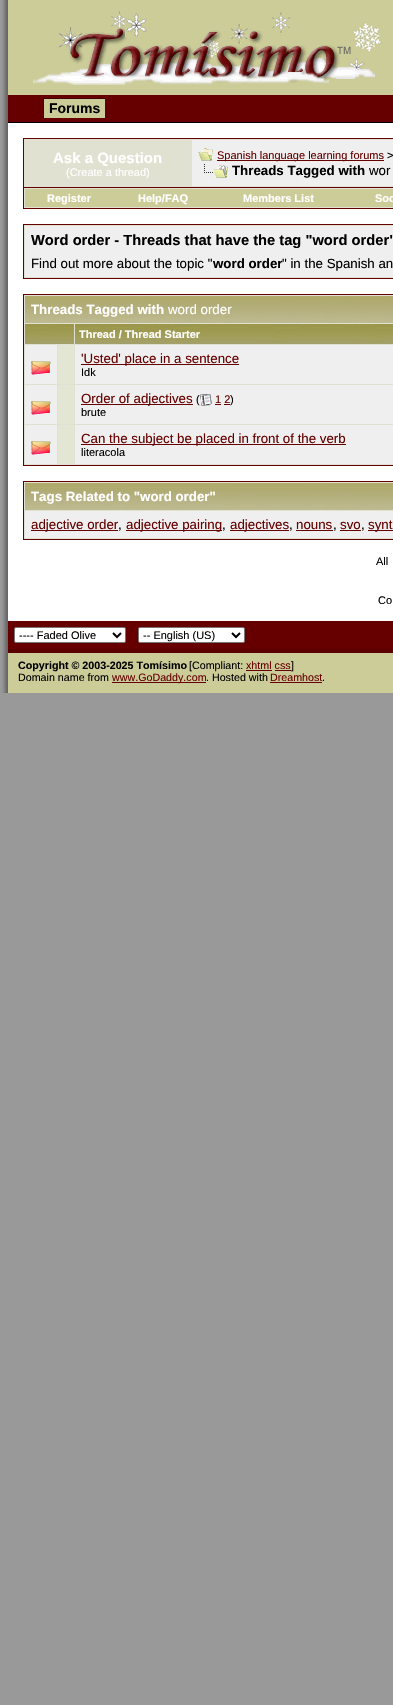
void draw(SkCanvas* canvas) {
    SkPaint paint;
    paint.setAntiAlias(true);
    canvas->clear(0xFF999999);
    canvas->drawImageRect(SkImages::DeferredFromEncodedData(SkData::MakeFromFileName("img1.png")), SkRect::MakeXYWH(2, 0, 6, 693), SkSamplingOptions());
    paint.setColor(0xFFCCCC99);
    canvas->drawRect(SkRect::MakeXYWH(8, 0, 385, 95), paint);
    canvas->drawImageRect(SkImages::DeferredFromEncodedData(SkData::MakeFromFileName("img2.png")), SkRect::MakeXYWH(33, 11, 349, 74), SkSamplingOptions());
    paint.setColor(0xFF660000);
    canvas->drawRect(SkRect::MakeXYWH(8, 95, 385, 27), paint);
    paint.setColor(0xFF000000);
    canvas->drawRect(SkRect::MakeXYWH(8, 122, 385, 1), paint);
    paint.setColor(0xFFCCCC99);
    canvas->drawRect(SkRect::MakeXYWH(44, 99, 61, 19), paint);
    SkFont font1(fontMgr->matchFamilyStyle("Liberation Sans", SkFontStyle::Bold()), 14);
    font1.setSubpixel(true);
    paint.setColor(0xFF000000);
    canvas->drawString("Forums", 49, 113, font1, paint);
    paint.setColor(0xFF440000);
    canvas->drawRect(SkRect::MakeXYWH(43, 98, 63, 1), paint);
    paint.setColor(0xFF660000);
    canvas->drawRect(SkRect::MakeXYWH(105, 98, 1, 1), paint);
    paint.setColor(0xFF440000);
    canvas->drawRect(SkRect::MakeXYWH(43, 98, 1, 21), paint);
    paint.setColor(0xFFFFFFFF);
    canvas->drawRect(SkRect::MakeXYWH(8, 123, 385, 498), paint);
    paint.setColor(0xFFE1E1D1);
    canvas->drawRect(SkRect::MakeXYWH(23.5f, 138.5f, 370, 49), paint);
    paint.setStyle(SkPaint::kStroke_Style);
    paint.setStrokeWidth(1);
    paint.setColor(0xFF660000);
    canvas->drawRect(SkRect::MakeXYWH(23.5f, 138.5f, 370, 49), paint);
    SkFont font2(fontMgr->matchFamilyStyle("Liberation Sans", SkFontStyle::Bold()), 15);
    font2.setSubpixel(true);
    paint.setStyle(SkPaint::kFill_Style);
    paint.setColor(0xFFFFFFFF);
    canvas->drawString("Ask a Question", 53, 163, font2, paint);
    SkFont font3(fontMgr->matchFamilyStyle("Liberation Sans", SkFontStyle::Normal()), 11);
    font3.setSubpixel(true);
    canvas->drawString("(Create a thread)", 66, 176, font3, paint);
    paint.setColor(0xFFEFEFEF);
    canvas->drawRect(SkRect::MakeXYWH(192, 140, 201, 46), paint);
    canvas->drawImageRect(SkImages::DeferredFromEncodedData(SkData::MakeFromFileName("img3.png")), SkRect::MakeXYWH(198, 148, 15, 13), SkSamplingOptions());
    paint.setColor(0xFF660000);
    canvas->drawRect(SkRect::MakeXYWH(217, 160, 167, 1), paint);
    canvas->drawString("Spanish language learning forums", 217, 159, font3, paint);
    paint.setColor(0xFF000000);
    canvas->drawString(">", 387, 159, font3, paint);
    canvas->drawImageRect(SkImages::DeferredFromEncodedData(SkData::MakeFromFileName("img4.png")), SkRect::MakeXYWH(204, 164, 24, 14), SkSamplingOptions());
    SkFont font4(fontMgr->matchFamilyStyle("Liberation Sans", SkFontStyle::Bold()), 13.3f);
    font4.setSubpixel(true);
    canvas->drawString("Threads Tagged with", 232, 175, font4, paint);
    SkFont font5(fontMgr->matchFamilyStyle("Liberation Sans", SkFontStyle::Normal()), 13.3f);
    font5.setSubpixel(true);
    canvas->drawString("wor", 369, 175, font5, paint);
    paint.setColor(0xFFE1E1D1);
    canvas->drawRect(SkRect::MakeXYWH(24, 188, 369, 20), paint);
    paint.setColor(0xFF660000);
    canvas->drawRect(SkRect::MakeXYWH(23, 208, 370, 1), paint);
    canvas->drawRect(SkRect::MakeXYWH(23, 188, 1, 21), paint);
    paint.setColor(0xFFCCCC99);
    canvas->drawRect(SkRect::MakeXYWH(25, 189, 368, 18), paint);
    SkFont font6(fontMgr->matchFamilyStyle("Liberation Sans", SkFontStyle::Bold()), 11);
    font6.setSubpixel(true);
    paint.setColor(0xFFFFFFFF);
    canvas->drawString("Register", 47, 202, font6, paint);
    canvas->drawString("Help/FAQ", 138, 202, font6, paint);
    canvas->drawString("Members List", 243, 202, font6, paint);
    canvas->drawString("Soc", 375, 202, font6, paint);
    paint.setColor(0xFFE1E1D1);
    canvas->drawRect(SkRect::MakeXYWH(23.5f, 224.5f, 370, 54), paint);
    paint.setStyle(SkPaint::kStroke_Style);
    paint.setColor(0xFF660000);
    canvas->drawRect(SkRect::MakeXYWH(23.5f, 224.5f, 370, 54), paint);
    paint.setStyle(SkPaint::kFill_Style);
    paint.setColor(0xFFEFEFEF);
    canvas->drawRect(SkRect::MakeXYWH(25, 226, 368, 51), paint);
    SkFont font7(fontMgr->matchFamilyStyle("Liberation Sans", SkFontStyle::Bold()), 14.7f);
    font7.setSubpixel(true);
    paint.setColor(0xFF000000);
    canvas->drawString("Word order - Threads that have the tag \"word order\"", 31, 245, font7, paint);
    canvas->drawString("Find out more about the topic \"", 31, 268, font5, paint);
    canvas->drawString("word order", 213, 268, font4, paint);
    canvas->drawString("\" in the Spanish an", 282, 268, font5, paint);
    paint.setColor(0xFFE1E1D1);
    canvas->drawRect(SkRect::MakeXYWH(23.5f, 294.5f, 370, 171), paint);
    paint.setStyle(SkPaint::kStroke_Style);
    paint.setColor(0xFF660000);
    canvas->drawRect(SkRect::MakeXYWH(23.5f, 294.5f, 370, 171), paint);
    canvas->drawImageRect(SkImages::DeferredFromEncodedData(SkData::MakeFromFileName("img5.png")), SkRect::MakeXYWH(25, 296, 368, 27), SkSamplingOptions());
    paint.setStyle(SkPaint::kFill_Style);
    paint.setColor(0xFFFFFFFF);
    canvas->drawString("Threads Tagged with", 31, 314, font4, paint);
    canvas->drawString("word order", 168, 314, font5, paint);
    canvas->drawImageRect(SkImages::DeferredFromEncodedData(SkData::MakeFromFileName("img6.png")), SkRect::MakeXYWH(25, 324, 49, 20), SkSamplingOptions());
    canvas->drawImageRect(SkImages::DeferredFromEncodedData(SkData::MakeFromFileName("img7.png")), SkRect::MakeXYWH(75, 324, 318, 20), SkSamplingOptions());
    canvas->drawString("Thread / Thread Starter", 79, 338, font6, paint);
    paint.setColor(0xFFEFEFEF);
    canvas->drawRect(SkRect::MakeXYWH(25, 345, 32, 39), paint);
    canvas->drawImageRect(SkImages::DeferredFromEncodedData(SkData::MakeFromFileName("img8.png")), SkRect::MakeXYWH(31, 361, 20, 14), SkSamplingOptions());
    paint.setColor(0xFFE2E6D3);
    canvas->drawRect(SkRect::MakeXYWH(58, 345, 16, 39), paint);
    paint.setColor(0xFFEFEFEF);
    canvas->drawRect(SkRect::MakeXYWH(75, 345, 318, 39), paint);
    paint.setColor(0xFF660000);
    canvas->drawRect(SkRect::MakeXYWH(81, 364, 158, 1), paint);
    canvas->drawString("'Usted' place in a sentence", 81, 363, font5, paint);
    paint.setColor(0xFF000000);
    canvas->drawString("Idk", 81, 376, font3, paint);
    paint.setColor(0xFFEFEFEF);
    canvas->drawRect(SkRect::MakeXYWH(25, 385, 32, 39), paint);
    canvas->drawImageRect(SkImages::DeferredFromEncodedData(SkData::MakeFromFileName("img8.png")), SkRect::MakeXYWH(31, 401, 20, 14), SkSamplingOptions());
    paint.setColor(0xFFE2E6D3);
    canvas->drawRect(SkRect::MakeXYWH(58, 385, 16, 39), paint);
    paint.setColor(0xFFEFEFEF);
    canvas->drawRect(SkRect::MakeXYWH(75, 385, 318, 39), paint);
    paint.setColor(0xFF660000);
    canvas->drawRect(SkRect::MakeXYWH(81, 404, 112, 1), paint);
    canvas->drawString("Order of adjectives", 81, 403, font5, paint);
    paint.setColor(0xFF000000);
    canvas->drawString("(", 196, 403, font3, paint);
    canvas->drawImageRect(SkImages::DeferredFromEncodedData(SkData::MakeFromFileName("img9.png")), SkRect::MakeXYWH(200, 394, 12, 12), SkSamplingOptions());
    paint.setColor(0xFF660000);
    canvas->drawString("1 2", 215, 403, font3, paint);
    canvas->drawRect(SkRect::MakeXYWH(215, 404, 6, 1), paint);
    paint.setColor(0xFF000000);
    canvas->drawString(")", 230, 403, font3, paint);
    paint.setColor(0xFF660000);
    canvas->drawRect(SkRect::MakeXYWH(224, 404, 6, 1), paint);
    paint.setColor(0xFF000000);
    canvas->drawString("brute", 81, 416, font3, paint);
    paint.setColor(0xFFEFEFEF);
    canvas->drawRect(SkRect::MakeXYWH(25, 425, 32, 39), paint);
    canvas->drawImageRect(SkImages::DeferredFromEncodedData(SkData::MakeFromFileName("img8.png")), SkRect::MakeXYWH(31, 441, 20, 14), SkSamplingOptions());
    paint.setColor(0xFFE2E6D3);
    canvas->drawRect(SkRect::MakeXYWH(58, 425, 16, 39), paint);
    paint.setColor(0xFFEFEFEF);
    canvas->drawRect(SkRect::MakeXYWH(75, 425, 318, 39), paint);
    paint.setColor(0xFF660000);
    canvas->drawRect(SkRect::MakeXYWH(81, 444, 265, 1), paint);
    canvas->drawString("Can the subject be placed in front of the verb", 81, 443, font5, paint);
    paint.setColor(0xFF000000);
    canvas->drawString("literacola", 81, 456, font3, paint);
    paint.setColor(0xFFE1E1D1);
    canvas->drawRect(SkRect::MakeXYWH(23.5f, 481.5f, 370, 58), paint);
    paint.setStyle(SkPaint::kStroke_Style);
    paint.setColor(0xFF660000);
    canvas->drawRect(SkRect::MakeXYWH(23.5f, 481.5f, 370, 58), paint);
    canvas->drawImageRect(SkImages::DeferredFromEncodedData(SkData::MakeFromFileName("img5.png")), SkRect::MakeXYWH(25, 483, 368, 27), SkSamplingOptions());
    paint.setStyle(SkPaint::kFill_Style);
    paint.setColor(0xFFFFFFFF);
    canvas->drawString("Tags Related to \"word order\"", 31, 501, font4, paint);
    paint.setColor(0xFFEFEFEF);
    canvas->drawRect(SkRect::MakeXYWH(25, 511, 368, 27), paint);
    paint.setColor(0xFF660000);
    canvas->drawRect(SkRect::MakeXYWH(31, 530, 87, 1), paint);
    canvas->drawString("adjective order", 31, 529, font5, paint);
    paint.setColor(0xFF000000);
    canvas->drawString(",", 118, 529, font5, paint);
    paint.setColor(0xFF660000);
    canvas->drawRect(SkRect::MakeXYWH(126, 530, 96, 1), paint);
    canvas->drawString("adjective pairing", 126, 529, font5, paint);
    paint.setColor(0xFF000000);
    canvas->drawString(",", 222, 529, font5, paint);
    paint.setColor(0xFF660000);
    canvas->drawRect(SkRect::MakeXYWH(230, 530, 59, 1), paint);
    canvas->drawString("adjectives", 230, 529, font5, paint);
    paint.setColor(0xFF000000);
    canvas->drawString(",", 289, 529, font5, paint);
    paint.setColor(0xFF660000);
    canvas->drawString("nouns", 296, 529, font5, paint);
    canvas->drawRect(SkRect::MakeXYWH(296, 530, 37, 1), paint);
    paint.setColor(0xFF000000);
    canvas->drawString(",", 333, 529, font5, paint);
    paint.setColor(0xFF660000);
    canvas->drawString("svo", 340, 529, font5, paint);
    canvas->drawRect(SkRect::MakeXYWH(340, 530, 21, 1), paint);
    paint.setColor(0xFF000000);
    canvas->drawString(",", 361, 529, font5, paint);
    paint.setColor(0xFF660000);
    canvas->drawRect(SkRect::MakeXYWH(368, 530, 25, 1), paint);
    canvas->drawString("synt", 368, 529, font5, paint);
    paint.setColor(0xFF000000);
    canvas->drawString("All", 376, 565, font3, paint);
    canvas->drawString("Co", 378, 604, font3, paint);
    paint.setColor(0xFF660000);
    canvas->drawRect(SkRect::MakeXYWH(8, 621, 385, 28), paint);
    paint.setColor(0xFFFFFFFF);
    canvas->drawRoundRect(SkRect::MakeXYWH(14.5f, 627.5f, 111, 15), 1.5f, 1.5f, paint);
    paint.setStyle(SkPaint::kStroke_Style);
    paint.setColor(0xFF767676);
    canvas->drawRoundRect(SkRect::MakeXYWH(14.5f, 627.5f, 111, 15), 1.5f, 1.5f, paint);
    paint.setStrokeWidth(2);
    paint.setColor(0xFF000000);
    canvas->drawPath(SkPathBuilder().moveTo(113, 633).lineTo(117, 637).lineTo(121, 633).detach(), paint);
    paint.setStyle(SkPaint::kFill_Style);
    canvas->drawString("---- Faded Olive", 19, 639, font3, paint);
    paint.setColor(0xFFFFFFFF);
    canvas->drawRoundRect(SkRect::MakeXYWH(138.5f, 627.5f, 106, 15), 1.5f, 1.5f, paint);
    paint.setStyle(SkPaint::kStroke_Style);
    paint.setStrokeWidth(1);
    paint.setColor(0xFF767676);
    canvas->drawRoundRect(SkRect::MakeXYWH(138.5f, 627.5f, 106, 15), 1.5f, 1.5f, paint);
    paint.setStrokeWidth(2);
    paint.setColor(0xFF000000);
    canvas->drawPath(SkPathBuilder().moveTo(232, 633).lineTo(236, 637).lineTo(240, 633).detach(), paint);
    paint.setStyle(SkPaint::kFill_Style);
    canvas->drawString("-- English (US)", 143, 639, font3, paint);
    canvas->drawImageRect(SkImages::DeferredFromEncodedData(SkData::MakeFromFileName("img10.png")), SkRect::MakeXYWH(8, 649, 385, 44), SkSamplingOptions());
    SkFont font8(fontMgr->matchFamilyStyle("Liberation Sans", SkFontStyle::Bold()), 10.7f);
    font8.setSubpixel(true);
    canvas->drawString("Copyright © 2003-2025 Tomísimo", 18, 669, font8, paint);
    SkFont font9(fontMgr->matchFamilyStyle("Liberation Sans", SkFontStyle::Normal()), 10.7f);
    font9.setSubpixel(true);
    canvas->drawString("[Compliant:", 189, 669, font9, paint);
    paint.setColor(0xFF660000);
    canvas->drawString("xhtml css", 246, 669, font9, paint);
    canvas->drawRect(SkRect::MakeXYWH(246, 670, 26, 1), paint);
    canvas->drawRect(SkRect::MakeXYWH(275, 670, 16, 1), paint);
    paint.setColor(0xFF000000);
    canvas->drawString("]", 291, 669, font9, paint);
    canvas->drawString("Domain name from", 18, 681, font9, paint);
    paint.setColor(0xFF660000);
    canvas->drawRect(SkRect::MakeXYWH(112, 682, 94, 1), paint);
    canvas->drawString("www.GoDaddy.com", 112, 681, font9, paint);
    paint.setColor(0xFF000000);
    canvas->drawString(". Hosted with", 206, 681, font9, paint);
    paint.setColor(0xFF660000);
    canvas->drawString("Dreamhost", 270, 681, font9, paint);
    canvas->drawRect(SkRect::MakeXYWH(270, 682, 52, 1), paint);
    paint.setColor(0xFF000000);
    canvas->drawString(".", 322, 681, font9, paint);
}
